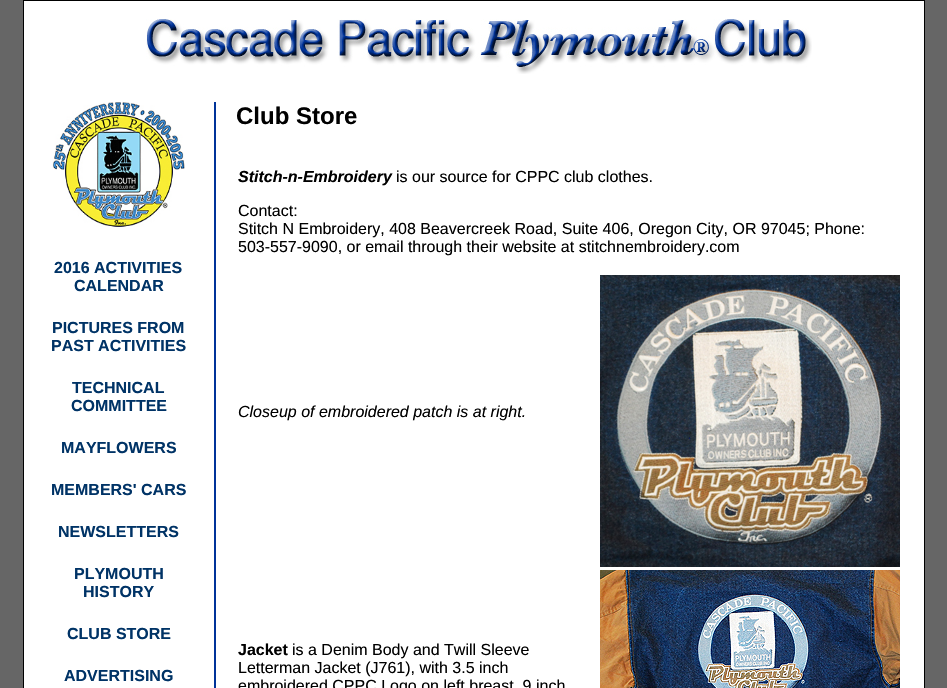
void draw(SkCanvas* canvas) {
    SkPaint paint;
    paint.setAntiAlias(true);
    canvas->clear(0xFF666666);
    paint.setColor(0xFFFFFFFF);
    canvas->drawRect(SkRect::MakeXYWH(23.5f, 0.5f, 901, 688), paint);
    paint.setStyle(SkPaint::kStroke_Style);
    paint.setStrokeWidth(1);
    paint.setColor(0xFF000000);
    canvas->drawRect(SkRect::MakeXYWH(23.5f, 0.5f, 901, 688), paint);
    canvas->drawImageRect(SkImages::DeferredFromEncodedData(SkData::MakeFromFileName("img1.png")), SkRect::MakeXYWH(146, 19, 666, 55), SkSamplingOptions());
    canvas->drawImageRect(SkImages::DeferredFromEncodedData(SkData::MakeFromFileName("img2.png")), SkRect::MakeXYWH(52, 102, 133, 125), SkSamplingOptions());
    SkFont font1(fontMgr->matchFamilyStyle("Liberation Sans", SkFontStyle::Bold()), 16);
    font1.setSubpixel(true);
    paint.setStyle(SkPaint::kFill_Style);
    paint.setColor(0xFF003366);
    canvas->drawString("2016 ACTIVITIES", 54, 273, font1, paint);
    canvas->drawString("CALENDAR", 74, 291, font1, paint);
    canvas->drawString("PICTURES FROM", 52, 333, font1, paint);
    canvas->drawString("PAST ACTIVITIES", 51, 351, font1, paint);
    canvas->drawString("TECHNICAL", 72, 393, font1, paint);
    canvas->drawString("COMMITTEE", 71, 411, font1, paint);
    canvas->drawString("MAYFLOWERS", 61, 453, font1, paint);
    canvas->drawString("MEMBERS' CARS", 51, 495, font1, paint);
    canvas->drawString("NEWSLETTERS", 58, 537, font1, paint);
    canvas->drawString("PLYMOUTH", 74, 579, font1, paint);
    canvas->drawString("HISTORY", 83, 597, font1, paint);
    canvas->drawString("CLUB STORE", 67, 639, font1, paint);
    canvas->drawString("ADVERTISING", 64, 681, font1, paint);
    paint.setColor(0xFF003399);
    canvas->drawRect(SkRect::MakeXYWH(214, 102, 2, 586), paint);
    SkFont font2(fontMgr->matchFamilyStyle("Liberation Sans", SkFontStyle::Bold()), 24);
    font2.setSubpixel(true);
    paint.setColor(0xFF000000);
    canvas->drawString("Club Store", 236, 124, font2, paint);
    SkFont font3(fontMgr->matchFamilyStyle("Liberation Sans", SkFontStyle::BoldItalic()), 16);
    font3.setSubpixel(true);
    canvas->drawString("Stitch-n-Embroidery", 238, 182, font3, paint);
    SkFont font4(fontMgr->matchFamilyStyle("Liberation Sans", SkFontStyle::Normal()), 16);
    font4.setSubpixel(true);
    canvas->drawString("is our source for CPPC club clothes.", 396, 182, font4, paint);
    canvas->drawString("Contact:", 238, 216, font4, paint);
    canvas->drawString("Stitch N Embroidery, 408 Beavercreek Road, Suite 406, Oregon City, OR 97045; Phone:", 238, 234, font4, paint);
    canvas->drawString("503-557-9090, or email through their website at stitchnembroidery.com", 238, 252, font4, paint);
    SkFont font5(fontMgr->matchFamilyStyle("Liberation Sans", SkFontStyle::Italic()), 16);
    font5.setSubpixel(true);
    canvas->drawString("Closeup of embroidered patch is at right.", 238, 417, font5, paint);
    canvas->drawImageRect(SkImages::DeferredFromEncodedData(SkData::MakeFromFileName("img3.png")), SkRect::MakeXYWH(600, 275, 300, 292), SkSamplingOptions());
    canvas->drawString("Jacket", 238, 655, font1, paint);
    canvas->drawString("is a Denim Body and Twill Sleeve", 292, 655, font4, paint);
    canvas->drawString("Letterman Jacket (J761), with 3.5 inch", 238, 673, font4, paint);
    canvas->drawString("embroidered CPPC Logo on left breast, 9 inch", 238, 691, font4, paint);
    canvas->drawImageRect(SkImages::DeferredFromEncodedData(SkData::MakeFromFileName("img4.png")), SkRect::MakeXYWH(600, 570, 300, 118), SkSamplingOptions());
}
